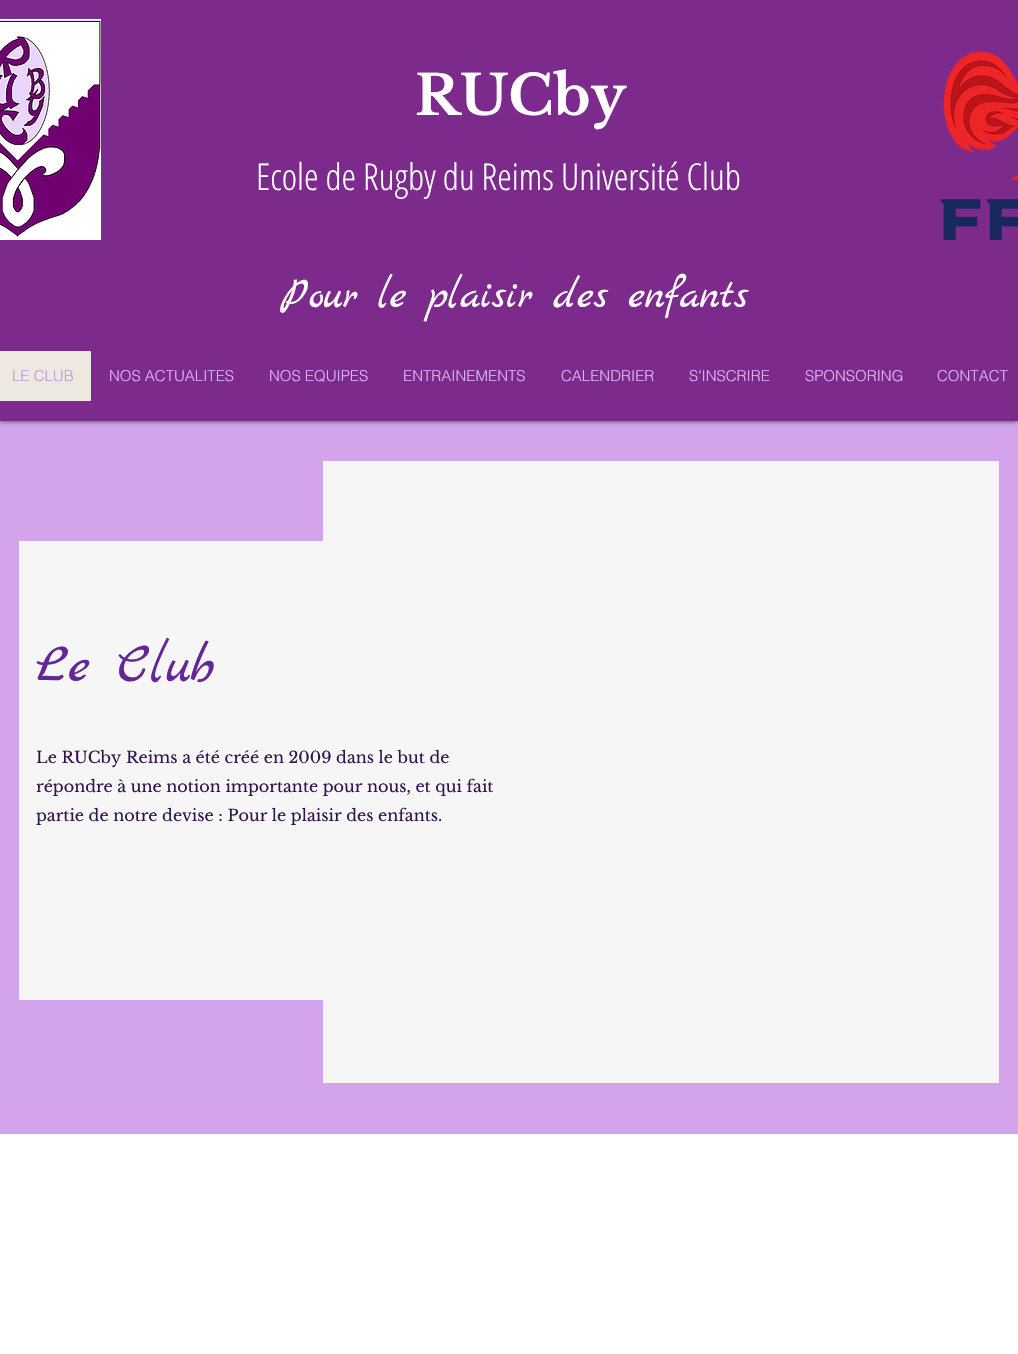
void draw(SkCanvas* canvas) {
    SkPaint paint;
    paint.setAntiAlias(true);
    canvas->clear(0xFFD3A4EB);
    paint.setColor(0xB3000000);
    paint.setMaskFilter(SkMaskFilter::MakeBlur(kNormal_SkBlurStyle, 2.5f));
    canvas->drawRect(SkRect::MakeXYWH(0, 0, 1018, 421), paint);
    paint.setMaskFilter(nullptr);
    paint.setColor(0xFF7C2A8B);
    canvas->drawRect(SkRect::MakeXYWH(0, 0, 1018, 421), paint);
    canvas->drawImageRect(SkImages::DeferredFromEncodedData(SkData::MakeFromFileName("img1.png")), SkRect::MakeXYWH(0, 19, 101, 221), SkSamplingOptions());
    SkFont font1(fontMgr->matchFamilyStyle("Libre Baskerville", SkFontStyle::Bold()), 55);
    font1.setSubpixel(true);
    paint.setColor(0xFFFFFFFF);
    canvas->drawString("RUCby", 415, 115, font1, paint);
    SkFont font2(fontMgr->matchFamilyStyle("Open Sans Condensed", SkFontStyle(300, SkFontStyle::kNormal_Width, SkFontStyle::kUpright_Slant)), 37);
    font2.setSubpixel(true);
    canvas->drawString("Ecole de Rugby du Reims Université Club", 256, 190, font2, paint);
    canvas->drawImageRect(SkImages::DeferredFromEncodedData(SkData::MakeFromFileName("img2.png")), SkRect::MakeXYWH(940, 19, 78, 221), SkSamplingOptions());
    SkFont font3(fontMgr->matchFamilyStyle("Marck Script", SkFontStyle::Normal()), 43);
    font3.setSubpixel(true);
    canvas->drawString("Pour le plaisir des enfants", 281, 307, font3, paint);
    paint.setColor(0xFFEDE9E1);
    canvas->drawRect(SkRect::MakeXYWH(0, 351, 91, 50), paint);
    SkFont font4(fontMgr->matchFamilyStyle("helvetica", SkFontStyle(300, SkFontStyle::kNormal_Width, SkFontStyle::kUpright_Slant)), 15);
    font4.setSubpixel(true);
    paint.setColor(0xFFC792E0);
    canvas->drawString("LE CLUB", 12, 381, font4, paint);
    paint.setColor(0xFFDDB8F0);
    canvas->drawString("NOS ACTUALITES", 109, 381, font4, paint);
    canvas->drawString("NOS EQUIPES", 269, 381, font4, paint);
    canvas->drawString("ENTRAINEMENTS", 403, 381, font4, paint);
    canvas->drawString("CALENDRIER", 561, 381, font4, paint);
    canvas->drawString("S'INSCRIRE", 689, 381, font4, paint);
    canvas->drawString("SPONSORING", 805, 381, font4, paint);
    canvas->drawString("CONTACT", 937, 381, font4, paint);
    paint.setColor(0xFFF6F6F6);
    canvas->drawRect(SkRect::MakeXYWH(19, 541, 304, 459), paint);
    SkFont font5(fontMgr->matchFamilyStyle("Marck Script", SkFontStyle::Normal()), 56);
    font5.setSubpixel(true);
    paint.setColor(0xFF652699);
    canvas->drawString("Le Club", 36, 681, font5, paint);
    paint.setColor(0xFFF6F6F6);
    canvas->drawRect(SkRect::MakeXYWH(323, 461, 676, 622), paint);
    SkFont font6(fontMgr->matchFamilyStyle("Libre Baskerville", SkFontStyle::Normal()), 16);
    font6.setSubpixel(true);
    paint.setColor(0xFF33134D);
    canvas->drawString("Le RUCby Reims a été créé en 2009 dans le but de", 36, 763, font6, paint);
    canvas->drawString("répondre à une notion importante pour nous, et qui fait", 36, 792, font6, paint);
    canvas->drawString("partie de notre devise : Pour le plaisir des enfants.", 36, 821, font6, paint);
    paint.setColor(0xFFFFFFFF);
    canvas->drawRect(SkRect::MakeXYWH(0, 1134, 1018, 220), paint);
}
